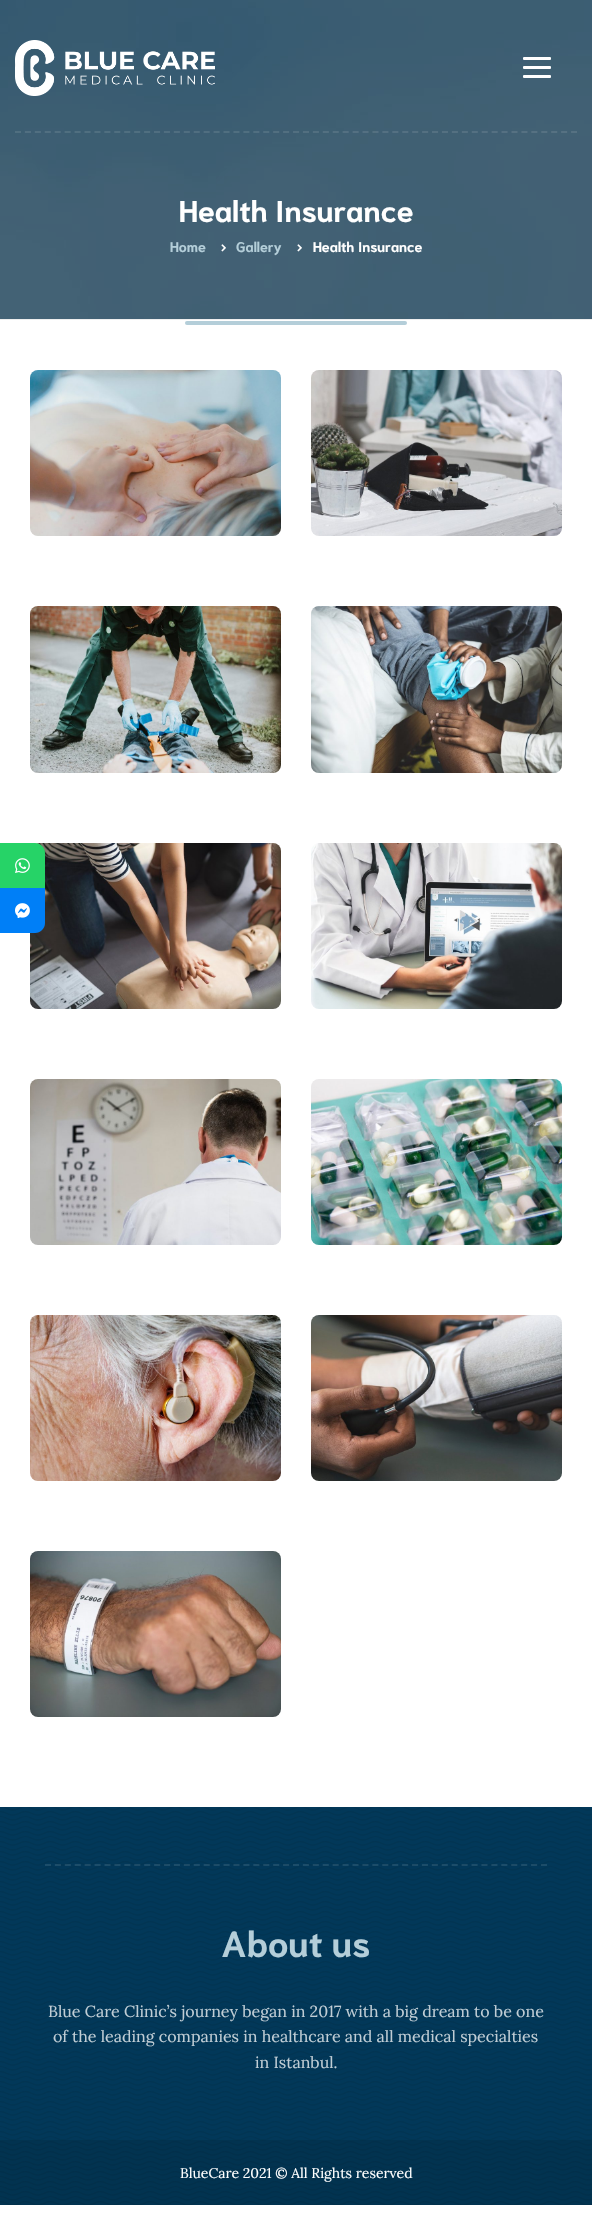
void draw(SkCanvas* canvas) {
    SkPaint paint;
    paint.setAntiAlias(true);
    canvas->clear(0xFFFFFFFF);
    canvas->drawImageRect(SkImages::DeferredFromEncodedData(SkData::MakeFromFileName("img2.png")), SkRect::MakeXYWH(0, 0, 592, 319), SkSamplingOptions());
    canvas->drawImageRect(SkImages::DeferredFromEncodedData(SkData::MakeFromFileName("img1.png")), SkRect::MakeXYWH(15, 40, 200, 56), SkSamplingOptions());
    paint.setColor(0xFFFFFFFF);
    canvas->drawRoundRect(SkRect::MakeXYWH(523, 57, 28, 3), 1, 1, paint);
    canvas->drawRoundRect(SkRect::MakeXYWH(523, 66, 28, 3), 1, 1, paint);
    canvas->drawRoundRect(SkRect::MakeXYWH(523, 75, 28, 3), 1, 1, paint);
    paint.setStyle(SkPaint::kStroke_Style);
    paint.setStrokeWidth(2);
    paint.setColor(0x1AFFFFFF);
    paint.setPathEffect(SkDashPathEffect::Make({{6, 3.93f}}, 0));
    canvas->drawPath(SkPathBuilder().moveTo(15, 132).lineTo(577, 132).detach(), paint);
    paint.setPathEffect(nullptr);
    paint.setStyle(SkPaint::kFill_Style);
    paint.setColor(0xFFEEEEEE);
    canvas->drawRect(SkRect::MakeXYWH(0, 319, 592, 1), paint);
    SkFont font1(fontMgr->matchFamilyStyle("Niramit", SkFontStyle::Bold()), 30);
    font1.setSubpixel(true);
    paint.setColor(0xFFFFFFFF);
    canvas->drawString("Health Insurance", 179, 222, font1, paint);
    SkFont font2(fontMgr->matchFamilyStyle("Niramit", SkFontStyle::Bold()), 14);
    font2.setSubpixel(true);
    paint.setColor(0xFFB4CED9);
    canvas->drawString("Home", 170, 252, font2, paint);
    canvas->drawImageRect(SkImages::DeferredFromEncodedData(SkData::MakeFromFileName("img3.png")), SkRect::MakeXYWH(221, 244, 5, 8), SkSamplingOptions());
    canvas->drawString("Gallery", 236, 252, font2, paint);
    canvas->drawImageRect(SkImages::DeferredFromEncodedData(SkData::MakeFromFileName("img4.png")), SkRect::MakeXYWH(297, 244, 5, 8), SkSamplingOptions());
    paint.setColor(0xFFFFFFFF);
    canvas->drawString("Health Insurance", 313, 252, font2, paint);
    paint.setColor(0xFFB4CED9);
    canvas->drawRoundRect(SkRect::MakeXYWH(185, 321, 222, 4), 2, 2, paint);
    canvas->drawImageRect(SkImages::DeferredFromEncodedData(SkData::MakeFromFileName("img11.png")), SkRect::MakeXYWH(30, 843, 251, 166), SkSamplingOptions());
    paint.setColor(0xFF26D367);
    canvas->drawPath(SkPathBuilder().moveTo(0, 843).lineTo(35, 843).cubicTo(40.5f, 843, 45, 847.5f, 45, 853).lineTo(45, 888).lineTo(0, 888).close().detach(), paint);
    canvas->drawImageRect(SkImages::DeferredFromEncodedData(SkData::MakeFromFileName("img5.png")), SkRect::MakeXYWH(15, 858, 15, 15), SkSamplingOptions());
    paint.setColor(0xFF007FF7);
    canvas->drawPath(SkPathBuilder().moveTo(0, 888).lineTo(45, 888).lineTo(45, 923).cubicTo(45, 928.5f, 40.5f, 933, 35, 933).lineTo(0, 933).close().detach(), paint);
    canvas->drawImageRect(SkImages::DeferredFromEncodedData(SkData::MakeFromFileName("img6.png")), SkRect::MakeXYWH(15, 903, 15, 15), SkSamplingOptions());
    canvas->drawImageRect(SkImages::DeferredFromEncodedData(SkData::MakeFromFileName("img7.png")), SkRect::MakeXYWH(30, 370, 251, 166), SkSamplingOptions());
    canvas->drawImageRect(SkImages::DeferredFromEncodedData(SkData::MakeFromFileName("img8.png")), SkRect::MakeXYWH(311, 370, 251, 166), SkSamplingOptions());
    canvas->drawImageRect(SkImages::DeferredFromEncodedData(SkData::MakeFromFileName("img9.png")), SkRect::MakeXYWH(30, 606, 251, 167), SkSamplingOptions());
    canvas->drawImageRect(SkImages::DeferredFromEncodedData(SkData::MakeFromFileName("img10.png")), SkRect::MakeXYWH(311, 606, 251, 167), SkSamplingOptions());
    canvas->drawImageRect(SkImages::DeferredFromEncodedData(SkData::MakeFromFileName("img12.png")), SkRect::MakeXYWH(311, 843, 251, 166), SkSamplingOptions());
    canvas->drawImageRect(SkImages::DeferredFromEncodedData(SkData::MakeFromFileName("img13.png")), SkRect::MakeXYWH(30, 1079, 251, 166), SkSamplingOptions());
    canvas->drawImageRect(SkImages::DeferredFromEncodedData(SkData::MakeFromFileName("img14.png")), SkRect::MakeXYWH(311, 1079, 251, 166), SkSamplingOptions());
    canvas->drawImageRect(SkImages::DeferredFromEncodedData(SkData::MakeFromFileName("img15.png")), SkRect::MakeXYWH(30, 1315, 251, 166), SkSamplingOptions());
    canvas->drawImageRect(SkImages::DeferredFromEncodedData(SkData::MakeFromFileName("img16.png")), SkRect::MakeXYWH(311, 1315, 251, 166), SkSamplingOptions());
    canvas->drawImageRect(SkImages::DeferredFromEncodedData(SkData::MakeFromFileName("img17.png")), SkRect::MakeXYWH(30, 1551, 251, 166), SkSamplingOptions());
    paint.setColor(0xFF023859);
    canvas->drawRect(SkRect::MakeXYWH(0, 1807, 592, 398), paint);
    canvas->drawImageRect(SkImages::DeferredFromEncodedData(SkData::MakeFromFileName("img18.png")), SkRect::MakeXYWH(0, 1807, 592, 398), SkSamplingOptions());
    paint.setStyle(SkPaint::kStroke_Style);
    paint.setColor(0x1AFFFFFF);
    paint.setPathEffect(SkDashPathEffect::Make({{6, 3.92f}}, 0));
    canvas->drawPath(SkPathBuilder().moveTo(45, 1865).lineTo(547, 1865).detach(), paint);
    paint.setPathEffect(nullptr);
    SkFont font3(fontMgr->matchFamilyStyle("Niramit", SkFontStyle::Bold()), 36);
    font3.setSubpixel(true);
    paint.setStyle(SkPaint::kFill_Style);
    paint.setColor(0xFFB4CED9);
    canvas->drawString("About us", 221, 1957, font3, paint);
    SkFont font4(fontMgr->matchFamilyStyle("Lora", SkFontStyle::Normal()), 16);
    font4.setSubpixel(true);
    paint.setColor(0xFFC0CDD5);
    canvas->drawString("Blue Care Clinic’s journey began in 2017 with a big dream to be one", 48, 2017, font4, paint);
    canvas->drawString("of the leading companies in healthcare and all medical specialties", 53, 2042, font4, paint);
    canvas->drawString("in Istanbul.", 255, 2068, font4, paint);
    paint.setColor(0x1A000000);
    canvas->drawRect(SkRect::MakeXYWH(0, 2140, 592, 65), paint);
    SkFont font5(fontMgr->matchFamilyStyle("Lora", SkFontStyle::Normal()), 14);
    font5.setSubpixel(true);
    paint.setColor(0xFFFFFFFF);
    canvas->drawString("BlueCare 2021 © All Rights reserved", 180, 2178, font5, paint);
}
